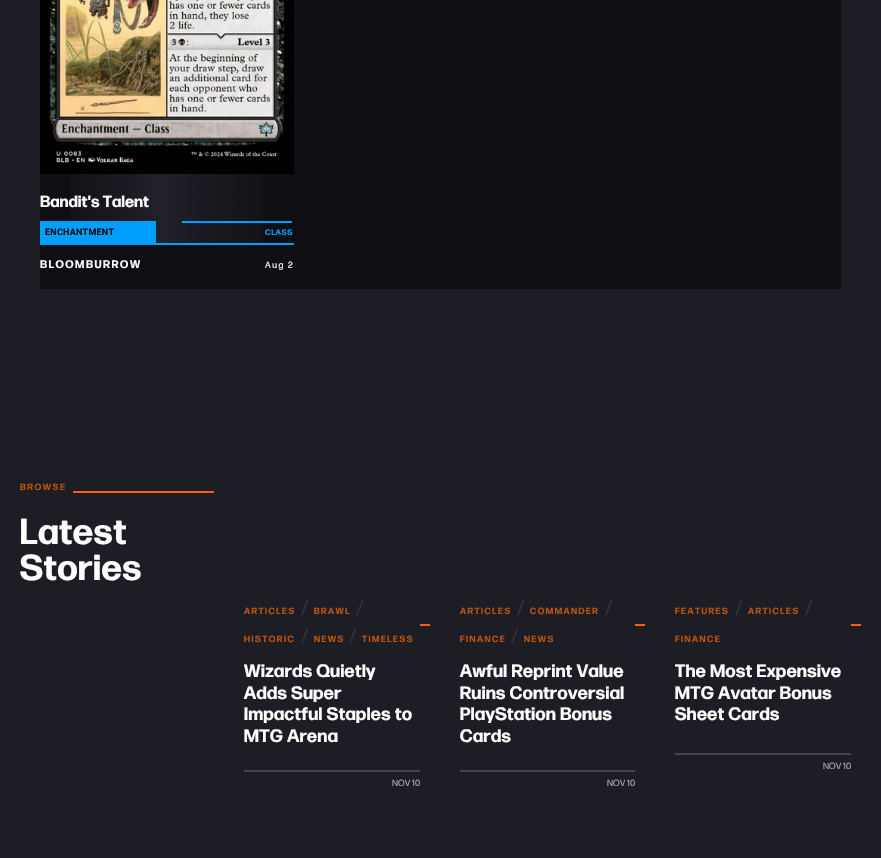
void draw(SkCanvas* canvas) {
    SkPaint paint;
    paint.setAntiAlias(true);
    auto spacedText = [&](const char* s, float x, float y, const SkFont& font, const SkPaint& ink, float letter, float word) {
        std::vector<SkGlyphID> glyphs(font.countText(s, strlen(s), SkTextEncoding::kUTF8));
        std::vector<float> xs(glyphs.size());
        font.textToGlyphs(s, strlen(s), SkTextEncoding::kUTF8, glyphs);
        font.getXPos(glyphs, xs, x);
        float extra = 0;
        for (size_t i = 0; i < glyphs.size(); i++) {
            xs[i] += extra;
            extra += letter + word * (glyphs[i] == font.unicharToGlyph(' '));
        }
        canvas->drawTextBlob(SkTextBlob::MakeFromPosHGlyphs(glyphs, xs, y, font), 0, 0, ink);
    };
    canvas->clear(0xFF1D1D25);
    paint.setColor(0xFF0E0E13);
    canvas->drawRect(SkRect::MakeXYWH(40, 0, 801, 289), paint);
    canvas->drawImageRect(SkImages::DeferredFromEncodedData(SkData::MakeFromFileName("img1.png")), SkRect::MakeXYWH(40, 0, 254, 174), SkSamplingOptions());
    canvas->drawImageRect(SkImages::DeferredFromEncodedData(SkData::MakeFromFileName("img2.png")), SkRect::MakeXYWH(70, 174, 193, 47), SkSamplingOptions());
    SkFont font1(fontMgr->matchFamilyStyle("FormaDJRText", SkFontStyle::Bold()), 16);
    font1.setSubpixel(true);
    paint.setColor(0xFFFFFFFF);
    canvas->drawString("Bandit's Talent", 40, 207, font1, paint);
    canvas->drawImageRect(SkImages::DeferredFromEncodedData(SkData::MakeFromFileName("img3.png")), SkRect::MakeXYWH(156, 221, 107, 22), SkSamplingOptions());
    paint.setColor(0xFF009EFF);
    canvas->drawRect(SkRect::MakeXYWH(40, 243, 254, 2), paint);
    canvas->drawRect(SkRect::MakeXYWH(40, 221, 116, 22), paint);
    SkFont font2(fontMgr->matchFamilyStyle("Roboto", SkFontStyle::Bold()), 9);
    font2.setSubpixel(true);
    paint.setColor(0xFF0E0E13);
    spacedText("ENCHANTMENT", 45, 235, font2, paint, 0.25f, 0);
    paint.setColor(0xFF009EFF);
    canvas->drawRect(SkRect::MakeXYWH(182, 221, 110, 2), paint);
    SkFont font3(fontMgr->matchFamilyStyle("FormaDJRText", SkFontStyle::Bold()), 8);
    font3.setSubpixel(true);
    spacedText("CLASS", 265, 235, font3, paint, 0.5f, 0);
    SkFont font4(fontMgr->matchFamilyStyle("FormaDJRText", SkFontStyle::Bold()), 11);
    font4.setSubpixel(true);
    paint.setColor(0xFFFFFFFF);
    spacedText("BLOOMBURROW", 40, 268, font4, paint, 1.5f, 0);
    SkFont font5(fontMgr->matchFamilyStyle("FormaDJRText", SkFontStyle::Normal()), 9);
    font5.setSubpixel(true);
    spacedText("Aug 2", 265, 268, font5, paint, 1.5f, 0);
    paint.setColor(0xFFFF6000);
    canvas->drawRect(SkRect::MakeXYWH(73, 491, 141, 2), paint);
    SkFont font6(fontMgr->matchFamilyStyle("FormaDJRText", SkFontStyle::Bold()), 9);
    font6.setSubpixel(true);
    paint.setColor(0xFFBD5209);
    spacedText("BROWSE", 20, 490, font6, paint, 1.5f, 0);
    SkFont font7(fontMgr->matchFamilyStyle("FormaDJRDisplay", SkFontStyle::Bold()), 36);
    font7.setSubpixel(true);
    paint.setColor(0xFFFFFFFF);
    spacedText("Latest", 20, 544, font7, paint, 1, 0);
    spacedText("Stories", 20, 580, font7, paint, 1, 0);
    paint.setColor(0xFFFF6000);
    canvas->drawRect(SkRect::MakeXYWH(420, 624, 10, 2), paint);
    SkFont font8(fontMgr->matchFamilyStyle("FormaDJRDisplay", SkFontStyle::Bold()), 9);
    font8.setSubpixel(true);
    paint.setColor(0xFFBD5209);
    spacedText("ARTICLES", 244, 614, font8, paint, 1.5f, 0);
    SkFont font9(fontMgr->matchFamilyStyle("Roboto", SkFontStyle::Normal()), 19);
    font9.setSubpixel(true);
    paint.setColor(0xFF333333);
    canvas->drawString("/", 301, 614, font9, paint);
    paint.setColor(0xFFBD5209);
    spacedText("BRAWL", 314, 614, font8, paint, 1.5f, 0);
    paint.setColor(0xFF333333);
    canvas->drawString("/", 356, 614, font9, paint);
    paint.setColor(0xFFBD5209);
    spacedText("HISTORIC", 244, 642, font8, paint, 1.5f, 0);
    paint.setColor(0xFF333333);
    canvas->drawString("/", 301, 642, font9, paint);
    paint.setColor(0xFFBD5209);
    spacedText("NEWS", 314, 642, font8, paint, 1.5f, 0);
    paint.setColor(0xFF333333);
    canvas->drawString("/", 349, 642, font9, paint);
    paint.setColor(0xFFBD5209);
    spacedText("TIMELESS", 362, 642, font8, paint, 1.5f, 0);
    SkFont font10(fontMgr->matchFamilyStyle("FormaDJRDisplay", SkFontStyle::Bold()), 18);
    font10.setSubpixel(true);
    paint.setColor(0xFFFFFFFF);
    spacedText("Wizards Quietly", 244, 677, font10, paint, 0.5f, 0);
    spacedText("Adds Super", 244, 699, font10, paint, 0.5f, 0);
    spacedText("Impactful Staples to", 244, 720, font10, paint, 0.5f, 0);
    spacedText("MTG Arena", 244, 742, font10, paint, 0.5f, 0);
    paint.setColor(0xFF44444B);
    canvas->drawRect(SkRect::MakeXYWH(244, 770, 176, 2), paint);
    paint.setColor(0xFFAAAAAA);
    canvas->drawString("NOV 10", 392, 786, font5, paint);
    paint.setColor(0xFFFF6000);
    canvas->drawRect(SkRect::MakeXYWH(635, 624, 10, 2), paint);
    paint.setColor(0xFFBD5209);
    spacedText("ARTICLES", 460, 614, font8, paint, 1.5f, 0);
    paint.setColor(0xFF333333);
    canvas->drawString("/", 517, 614, font9, paint);
    paint.setColor(0xFFBD5209);
    spacedText("COMMANDER", 530, 614, font8, paint, 1.5f, 0);
    paint.setColor(0xFF333333);
    canvas->drawString("/", 605, 614, font9, paint);
    paint.setColor(0xFFBD5209);
    spacedText("FINANCE", 460, 642, font8, paint, 1.5f, 0);
    paint.setColor(0xFF333333);
    canvas->drawString("/", 511, 642, font9, paint);
    paint.setColor(0xFFBD5209);
    spacedText("NEWS", 524, 642, font8, paint, 1.5f, 0);
    paint.setColor(0xFFFFFFFF);
    spacedText("Awful Reprint Value", 460, 677, font10, paint, 0.5f, 0);
    spacedText("Ruins Controversial", 460, 699, font10, paint, 0.5f, 0);
    spacedText("PlayStation Bonus", 460, 720, font10, paint, 0.5f, 0);
    spacedText("Cards", 460, 742, font10, paint, 0.5f, 0);
    paint.setColor(0xFF44444B);
    canvas->drawRect(SkRect::MakeXYWH(460, 770, 175, 2), paint);
    paint.setColor(0xFFAAAAAA);
    canvas->drawString("NOV 10", 607, 786, font5, paint);
    paint.setColor(0xFFFF6000);
    canvas->drawRect(SkRect::MakeXYWH(851, 624, 10, 2), paint);
    paint.setColor(0xFFBD5209);
    spacedText("FEATURES", 675, 614, font8, paint, 1.5f, 0);
    paint.setColor(0xFF333333);
    canvas->drawString("/", 735, 614, font9, paint);
    paint.setColor(0xFFBD5209);
    spacedText("ARTICLES", 748, 614, font8, paint, 1.5f, 0);
    paint.setColor(0xFF333333);
    canvas->drawString("/", 805, 614, font9, paint);
    paint.setColor(0xFFBD5209);
    spacedText("FINANCE", 675, 642, font8, paint, 1.5f, 0);
    paint.setColor(0xFFFFFFFF);
    spacedText("The Most Expensive", 675, 677, font10, paint, 0.5f, 0);
    spacedText("MTG Avatar Bonus", 675, 699, font10, paint, 0.5f, 0);
    spacedText("Sheet Cards", 675, 720, font10, paint, 0.5f, 0);
    paint.setColor(0xFF44444B);
    canvas->drawRect(SkRect::MakeXYWH(675, 753, 176, 2), paint);
    paint.setColor(0xFFAAAAAA);
    canvas->drawString("NOV 10", 823, 769, font5, paint);
}
